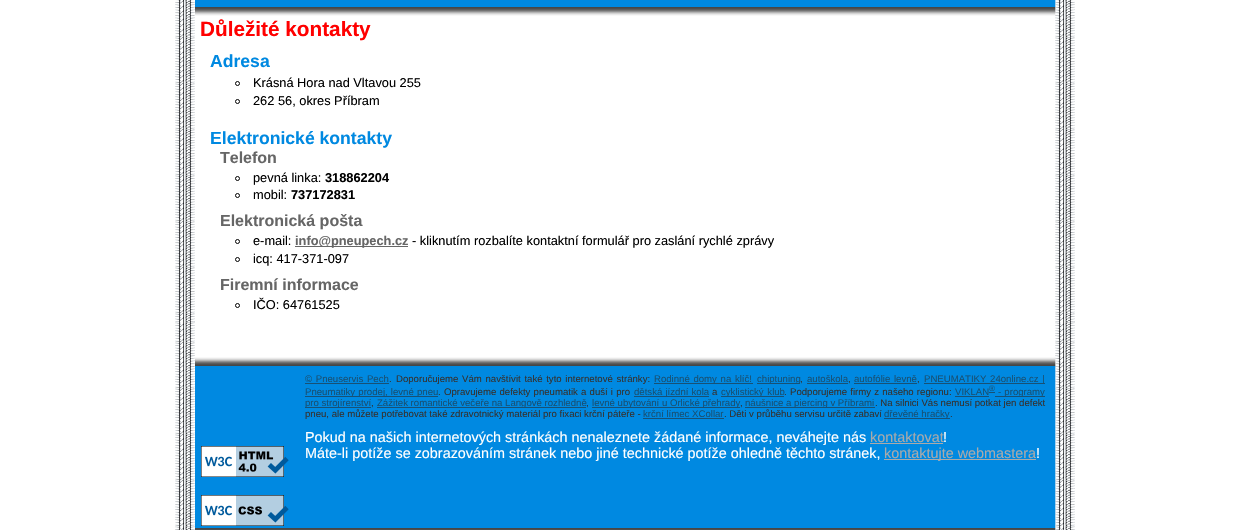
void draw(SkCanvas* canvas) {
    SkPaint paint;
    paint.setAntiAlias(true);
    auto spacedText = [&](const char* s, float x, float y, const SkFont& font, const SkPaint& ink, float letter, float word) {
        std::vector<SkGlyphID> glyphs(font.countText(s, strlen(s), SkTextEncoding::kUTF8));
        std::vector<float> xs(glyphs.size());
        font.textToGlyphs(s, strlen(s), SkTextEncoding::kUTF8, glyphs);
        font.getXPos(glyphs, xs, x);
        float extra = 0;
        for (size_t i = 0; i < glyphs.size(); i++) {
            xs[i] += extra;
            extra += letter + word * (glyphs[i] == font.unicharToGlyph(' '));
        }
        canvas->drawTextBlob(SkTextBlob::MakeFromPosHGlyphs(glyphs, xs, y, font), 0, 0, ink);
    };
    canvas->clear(0xFFFFFFFF);
    canvas->drawImageRect(SkImages::DeferredFromEncodedData(SkData::MakeFromFileName("img1.png")), SkRect::MakeXYWH(175, 0, 900, 17), SkSamplingOptions());
    canvas->drawImageRect(SkImages::DeferredFromEncodedData(SkData::MakeFromFileName("img2.png")), SkRect::MakeXYWH(175, 17, 900, 305), SkSamplingOptions());
    SkFont font1(fontMgr->matchFamilyStyle("Liberation Sans", SkFontStyle::Bold()), 20.75f);
    font1.setSubpixel(true);
    paint.setColor(0xFFFF0000);
    canvas->drawString("Důležité kontakty", 200, 36, font1, paint);
    SkFont font2(fontMgr->matchFamilyStyle("Liberation Sans", SkFontStyle::Bold()), 17.6f);
    font2.setSubpixel(true);
    paint.setColor(0xFF0089E1);
    canvas->drawString("Adresa", 210, 67, font2, paint);
    paint.setStyle(SkPaint::kStroke_Style);
    paint.setStrokeWidth(1);
    paint.setColor(0xFF000000);
    canvas->drawCircle(237.5f, 83.5f, 2, paint);
    SkFont font3(fontMgr->matchFamilyStyle("Liberation Sans", SkFontStyle::Normal()), 12.8f);
    font3.setSubpixel(true);
    paint.setStyle(SkPaint::kFill_Style);
    canvas->drawString("Krásná Hora nad Vltavou 255", 253, 87, font3, paint);
    paint.setStyle(SkPaint::kStroke_Style);
    canvas->drawCircle(237.5f, 101.5f, 2, paint);
    paint.setStyle(SkPaint::kFill_Style);
    canvas->drawString("262 56, okres Příbram", 253, 105, font3, paint);
    paint.setColor(0xFF0089E1);
    canvas->drawString("Elektronické kontakty", 210, 144, font2, paint);
    SkFont font4(fontMgr->matchFamilyStyle("Liberation Sans", SkFontStyle::Bold()), 16);
    font4.setSubpixel(true);
    paint.setColor(0xFF666666);
    canvas->drawString("Telefon", 220, 163, font4, paint);
    paint.setStyle(SkPaint::kStroke_Style);
    paint.setColor(0xFF000000);
    canvas->drawCircle(237.5f, 178.5f, 2, paint);
    paint.setStyle(SkPaint::kFill_Style);
    canvas->drawString("pevná linka:", 253, 182, font3, paint);
    SkFont font5(fontMgr->matchFamilyStyle("Liberation Sans", SkFontStyle::Bold()), 12.8f);
    font5.setSubpixel(true);
    canvas->drawString("318862204", 325, 182, font5, paint);
    paint.setStyle(SkPaint::kStroke_Style);
    canvas->drawCircle(237.5f, 195.5f, 2, paint);
    paint.setStyle(SkPaint::kFill_Style);
    canvas->drawString("mobil:", 253, 199, font3, paint);
    canvas->drawString("737172831", 291, 199, font5, paint);
    paint.setColor(0xFF666666);
    canvas->drawString("Elektronická pošta", 220, 226, font4, paint);
    paint.setStyle(SkPaint::kStroke_Style);
    paint.setColor(0xFF000000);
    canvas->drawCircle(237.5f, 241.5f, 2, paint);
    paint.setStyle(SkPaint::kFill_Style);
    canvas->drawString("e-mail:", 253, 245, font3, paint);
    paint.setColor(0xFF666666);
    canvas->drawRect(SkRect::MakeXYWH(295, 246, 113, 1), paint);
    canvas->drawString("info@pneupech.cz", 295, 245, font5, paint);
    paint.setColor(0xFF000000);
    canvas->drawString("- kliknutím rozbalíte kontaktní formulář pro zaslání rychlé zprávy", 412, 245, font3, paint);
    paint.setStyle(SkPaint::kStroke_Style);
    canvas->drawCircle(237.5f, 259.5f, 2, paint);
    paint.setStyle(SkPaint::kFill_Style);
    canvas->drawString("icq: 417-371-097", 253, 263, font3, paint);
    paint.setColor(0xFF666666);
    canvas->drawString("Firemní informace", 220, 290, font4, paint);
    paint.setStyle(SkPaint::kStroke_Style);
    paint.setColor(0xFF000000);
    canvas->drawCircle(237.5f, 305.5f, 2, paint);
    paint.setStyle(SkPaint::kFill_Style);
    canvas->drawString("IČO: 64761525", 253, 309, font3, paint);
    canvas->drawImageRect(SkImages::DeferredFromEncodedData(SkData::MakeFromFileName("img3.png")), SkRect::MakeXYWH(175, 322, 900, 46), SkSamplingOptions());
    canvas->drawImageRect(SkImages::DeferredFromEncodedData(SkData::MakeFromFileName("img4.png")), SkRect::MakeXYWH(175, 368, 900, 158), SkSamplingOptions());
    SkFont font6(fontMgr->matchFamilyStyle("Liberation Sans", SkFontStyle::Normal()), 9.6f);
    font6.setSubpixel(true);
    paint.setColor(0xFF175175);
    spacedText("© Pneuservis Pech", 305, 382, font6, paint, 0, 1);
    canvas->drawRect(SkRect::MakeXYWH(305, 383, 84, 1), paint);
    paint.setColor(0xFF333333);
    canvas->drawString(".", 389, 382, font6, paint);
    spacedText("Doporučujeme Vám navštívit také tyto internetové stránky:", 396, 382, font6, paint, 0, 1);
    paint.setColor(0xFF175175);
    canvas->drawRect(SkRect::MakeXYWH(654, 383, 99, 1), paint);
    spacedText("Rodinné domy na klíč!", 654, 382, font6, paint, 0, 1);
    canvas->drawRect(SkRect::MakeXYWH(757, 383, 43, 1), paint);
    canvas->drawString("chiptuning", 757, 382, font6, paint);
    paint.setColor(0xFF333333);
    canvas->drawString(",", 800, 382, font6, paint);
    paint.setColor(0xFF175175);
    canvas->drawString("autoškola", 807, 382, font6, paint);
    canvas->drawRect(SkRect::MakeXYWH(807, 383, 41, 1), paint);
    paint.setColor(0xFF333333);
    canvas->drawString(",", 848, 382, font6, paint);
    paint.setColor(0xFF175175);
    spacedText("autofólie levně", 854, 382, font6, paint, 0, 1);
    canvas->drawRect(SkRect::MakeXYWH(854, 383, 63, 1), paint);
    paint.setColor(0xFF333333);
    canvas->drawString(",", 917, 382, font6, paint);
    paint.setColor(0xFF175175);
    canvas->drawRect(SkRect::MakeXYWH(924, 383, 121, 1), paint);
    spacedText("PNEUMATIKY 24online.cz |", 924, 382, font6, paint, 0, 1);
    canvas->drawRect(SkRect::MakeXYWH(305, 396, 133, 1), paint);
    spacedText("Pneumatiky prodej, levné pneu", 305, 395, font6, paint, 0, 0.5f);
    paint.setColor(0xFF333333);
    canvas->drawString(".", 438, 395, font6, paint);
    spacedText("Opravujeme defekty pneumatik a duší i pro", 444, 395, font6, paint, 0, 0.5f);
    paint.setColor(0xFF175175);
    canvas->drawRect(SkRect::MakeXYWH(634, 396, 75, 1), paint);
    spacedText("dětská jízdní kola", 634, 395, font6, paint, 0, 0.5f);
    paint.setColor(0xFF333333);
    canvas->drawString("a", 712, 395, font6, paint);
    paint.setColor(0xFF175175);
    canvas->drawRect(SkRect::MakeXYWH(721, 396, 63, 1), paint);
    spacedText("cyklistický klub", 721, 395, font6, paint, 0, 1);
    paint.setColor(0xFF333333);
    canvas->drawString(".", 784, 395, font6, paint);
    spacedText("Podporujeme firmy z našeho regionu:", 790, 395, font6, paint, 0, 0.5f);
    paint.setColor(0xFF175175);
    canvas->drawString("VIKLAN", 955, 395, font6, paint);
    canvas->drawRect(SkRect::MakeXYWH(955, 396, 34, 1), paint);
    canvas->drawRect(SkRect::MakeXYWH(989, 392, 6, 1), paint);
    SkFont font7(fontMgr->matchFamilyStyle("Liberation Sans", SkFontStyle::Normal()), 8);
    font7.setSubpixel(true);
    canvas->drawString("®", 989, 391, font7, paint);
    canvas->drawRect(SkRect::MakeXYWH(995, 396, 50, 1), paint);
    spacedText("- programy", 998, 395, font6, paint, 0, 0.5f);
    canvas->drawRect(SkRect::MakeXYWH(305, 407, 66, 1), paint);
    canvas->drawString("pro strojírenství", 305, 406, font6, paint);
    paint.setColor(0xFF333333);
    canvas->drawString(",", 371, 406, font6, paint);
    paint.setColor(0xFF175175);
    canvas->drawRect(SkRect::MakeXYWH(377, 407, 209, 1), paint);
    canvas->drawString("Zážitek romantické večeře na Langově rozhledně", 377, 406, font6, paint);
    paint.setColor(0xFF333333);
    canvas->drawString(",", 586, 406, font6, paint);
    paint.setColor(0xFF175175);
    canvas->drawRect(SkRect::MakeXYWH(592, 407, 148, 1), paint);
    canvas->drawString("levné ubytování u Orlické přehrady", 592, 406, font6, paint);
    paint.setColor(0xFF333333);
    canvas->drawString(",", 740, 406, font6, paint);
    paint.setColor(0xFF175175);
    canvas->drawRect(SkRect::MakeXYWH(745, 407, 130, 1), paint);
    canvas->drawString("náušnice a piercing v Příbrami", 745, 406, font6, paint);
    paint.setColor(0xFF333333);
    canvas->drawString(". Na silnici Vás nemusí potkat jen defekt", 875, 406, font6, paint);
    canvas->drawString("pneu, ale můžete potřebovat také zdravotnický materiál pro fixaci krční páteře -", 305, 417, font6, paint);
    paint.setColor(0xFF175175);
    canvas->drawString("krční límec XCollar", 643, 417, font6, paint);
    canvas->drawRect(SkRect::MakeXYWH(643, 418, 81, 1), paint);
    paint.setColor(0xFF333333);
    canvas->drawString(". Děti v průběhu servisu určitě zabaví", 724, 417, font6, paint);
    paint.setColor(0xFF175175);
    canvas->drawRect(SkRect::MakeXYWH(884, 418, 66, 1), paint);
    canvas->drawString("dřevěné hračky", 884, 417, font6, paint);
    paint.setColor(0xFF333333);
    canvas->drawString(".", 950, 417, font6, paint);
    SkFont font8(fontMgr->matchFamilyStyle("Liberation Sans", SkFontStyle::Normal()), 14.4f);
    font8.setSubpixel(true);
    paint.setColor(0xFFFFFFFF);
    canvas->drawString("Pokud na našich internetových stránkách nenaleznete žádané informace, neváhejte nás", 305, 442, font8, paint);
    paint.setColor(0xFFAAAAAA);
    canvas->drawString("kontaktovat", 870, 442, font8, paint);
    canvas->drawRect(SkRect::MakeXYWH(870, 443, 73, 1), paint);
    paint.setColor(0xFFFFFFFF);
    canvas->drawString("!", 943, 442, font8, paint);
    canvas->drawString("Máte-li potíže se zobrazováním stránek nebo jiné technické potíže ohledně těchto stránek,", 305, 458, font8, paint);
    paint.setColor(0xFFAAAAAA);
    canvas->drawRect(SkRect::MakeXYWH(884, 459, 152, 1), paint);
    canvas->drawString("kontaktujte webmastera", 884, 458, font8, paint);
    paint.setColor(0xFFFFFFFF);
    canvas->drawString("!", 1036, 458, font8, paint);
    canvas->drawImageRect(SkImages::DeferredFromEncodedData(SkData::MakeFromFileName("img5.png")), SkRect::MakeXYWH(201, 446, 88, 31), SkSamplingOptions());
    canvas->drawImageRect(SkImages::DeferredFromEncodedData(SkData::MakeFromFileName("img6.png")), SkRect::MakeXYWH(201, 495, 88, 31), SkSamplingOptions());
    canvas->drawImageRect(SkImages::DeferredFromEncodedData(SkData::MakeFromFileName("img7.png")), SkRect::MakeXYWH(175, 526, 900, 4), SkSamplingOptions());
}
